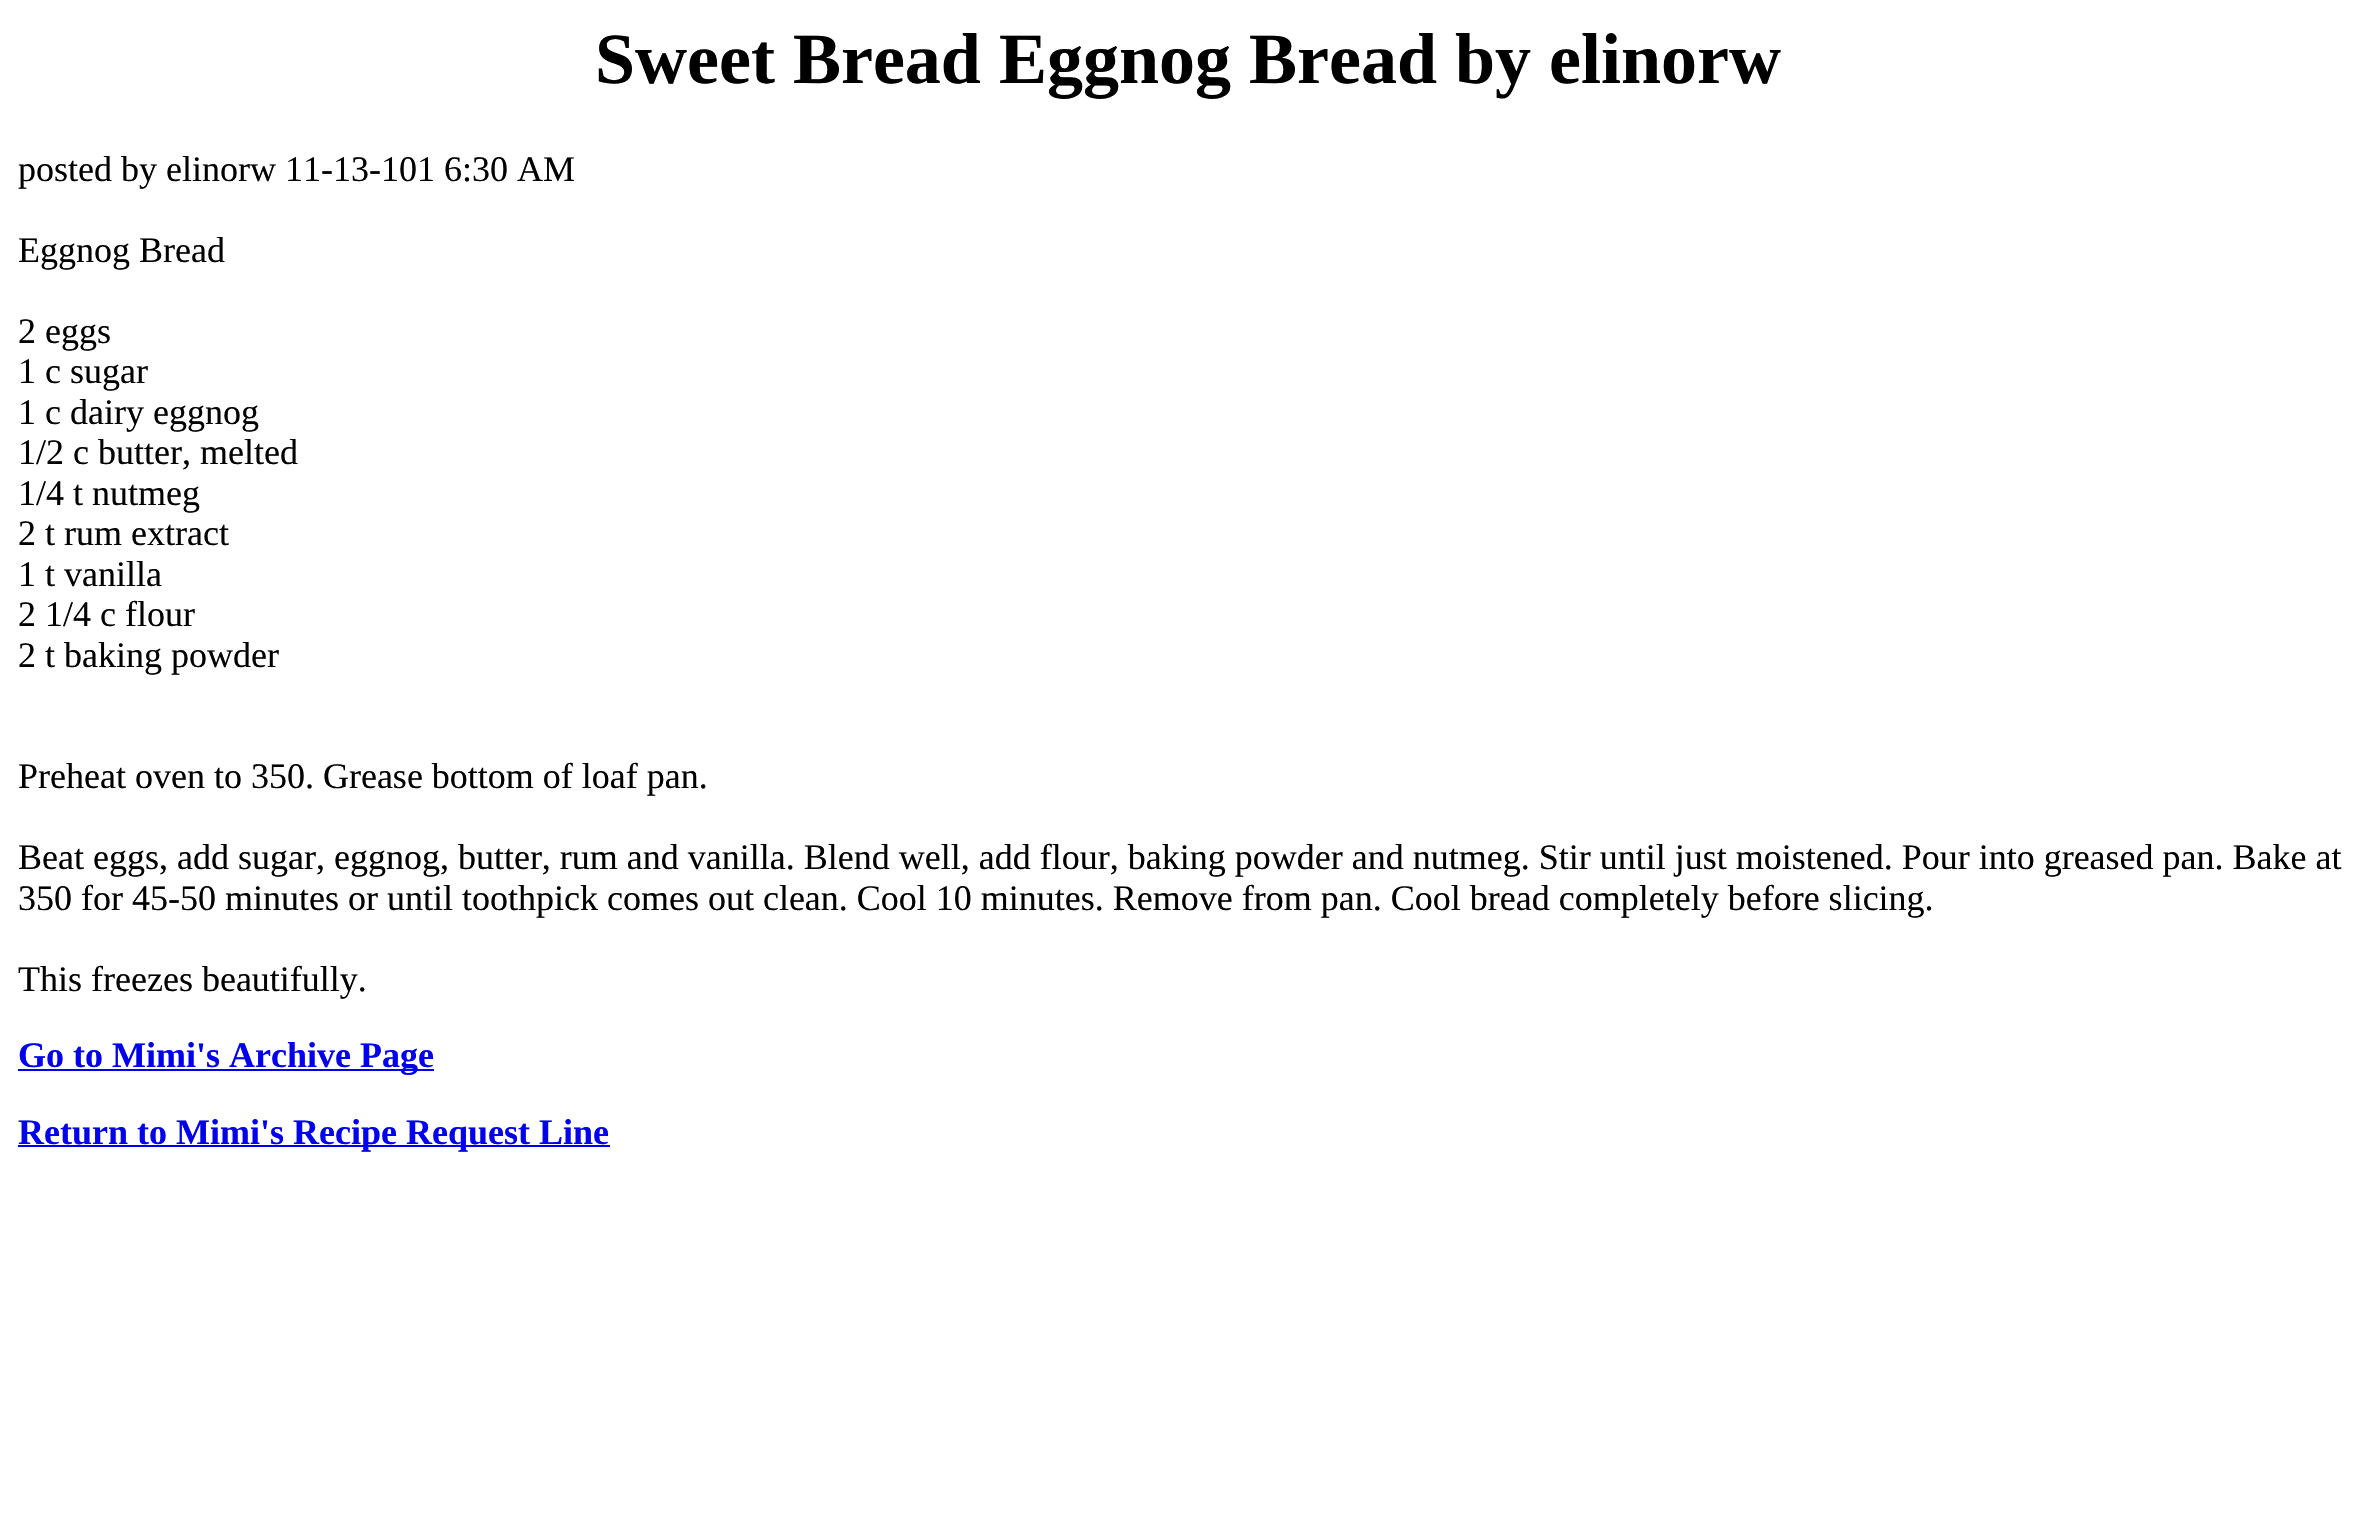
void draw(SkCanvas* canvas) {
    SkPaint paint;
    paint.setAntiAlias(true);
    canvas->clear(0xFFFFFFFF);
    SkFont font1(fontMgr->matchFamilyStyle("Liberation Serif", SkFontStyle::Bold()), 72);
    font1.setSubpixel(true);
    paint.setColor(0xFF000000);
    canvas->drawString("Sweet Bread Eggnog Bread by elinorw", 595, 83, font1, paint);
    SkFont font2(fontMgr->matchFamilyStyle("Liberation Serif", SkFontStyle::Normal()), 36);
    font2.setSubpixel(true);
    canvas->drawString("posted by elinorw 11-13-101 6:30 AM", 18, 181, font2, paint);
    canvas->drawString("Eggnog Bread", 18, 262, font2, paint);
    canvas->drawString("2 eggs", 18, 343, font2, paint);
    canvas->drawString("1 c sugar", 18, 383, font2, paint);
    canvas->drawString("1 c dairy eggnog", 18, 424, font2, paint);
    canvas->drawString("1/2 c butter, melted", 18, 464, font2, paint);
    canvas->drawString("1/4 t nutmeg", 18, 505, font2, paint);
    canvas->drawString("2 t rum extract", 18, 545, font2, paint);
    canvas->drawString("1 t vanilla", 18, 586, font2, paint);
    canvas->drawString("2 1/4 c flour", 18, 626, font2, paint);
    canvas->drawString("2 t baking powder", 18, 667, font2, paint);
    canvas->drawString("Preheat oven to 350. Grease bottom of loaf pan.", 18, 788, font2, paint);
    canvas->drawString("Beat eggs, add sugar, eggnog, butter, rum and vanilla. Blend well, add flour, baking powder and nutmeg. Stir until just moistened. Pour into greased pan. Bake at", 18, 869, font2, paint);
    canvas->drawString("350 for 45-50 minutes or until toothpick comes out clean. Cool 10 minutes. Remove from pan. Cool bread completely before slicing.", 18, 910, font2, paint);
    canvas->drawString("This freezes beautifully.", 18, 991, font2, paint);
    paint.setColor(0xFF0000EE);
    canvas->drawRect(SkRect::MakeXYWH(18, 1069, 416, 2), paint);
    SkFont font3(fontMgr->matchFamilyStyle("Liberation Serif", SkFontStyle::Bold()), 36);
    font3.setSubpixel(true);
    canvas->drawString("Go to Mimi's Archive Page", 18, 1067, font3, paint);
    canvas->drawRect(SkRect::MakeXYWH(18, 1145, 592, 2), paint);
    canvas->drawString("Return to Mimi's Recipe Request Line", 18, 1144, font3, paint);
}
